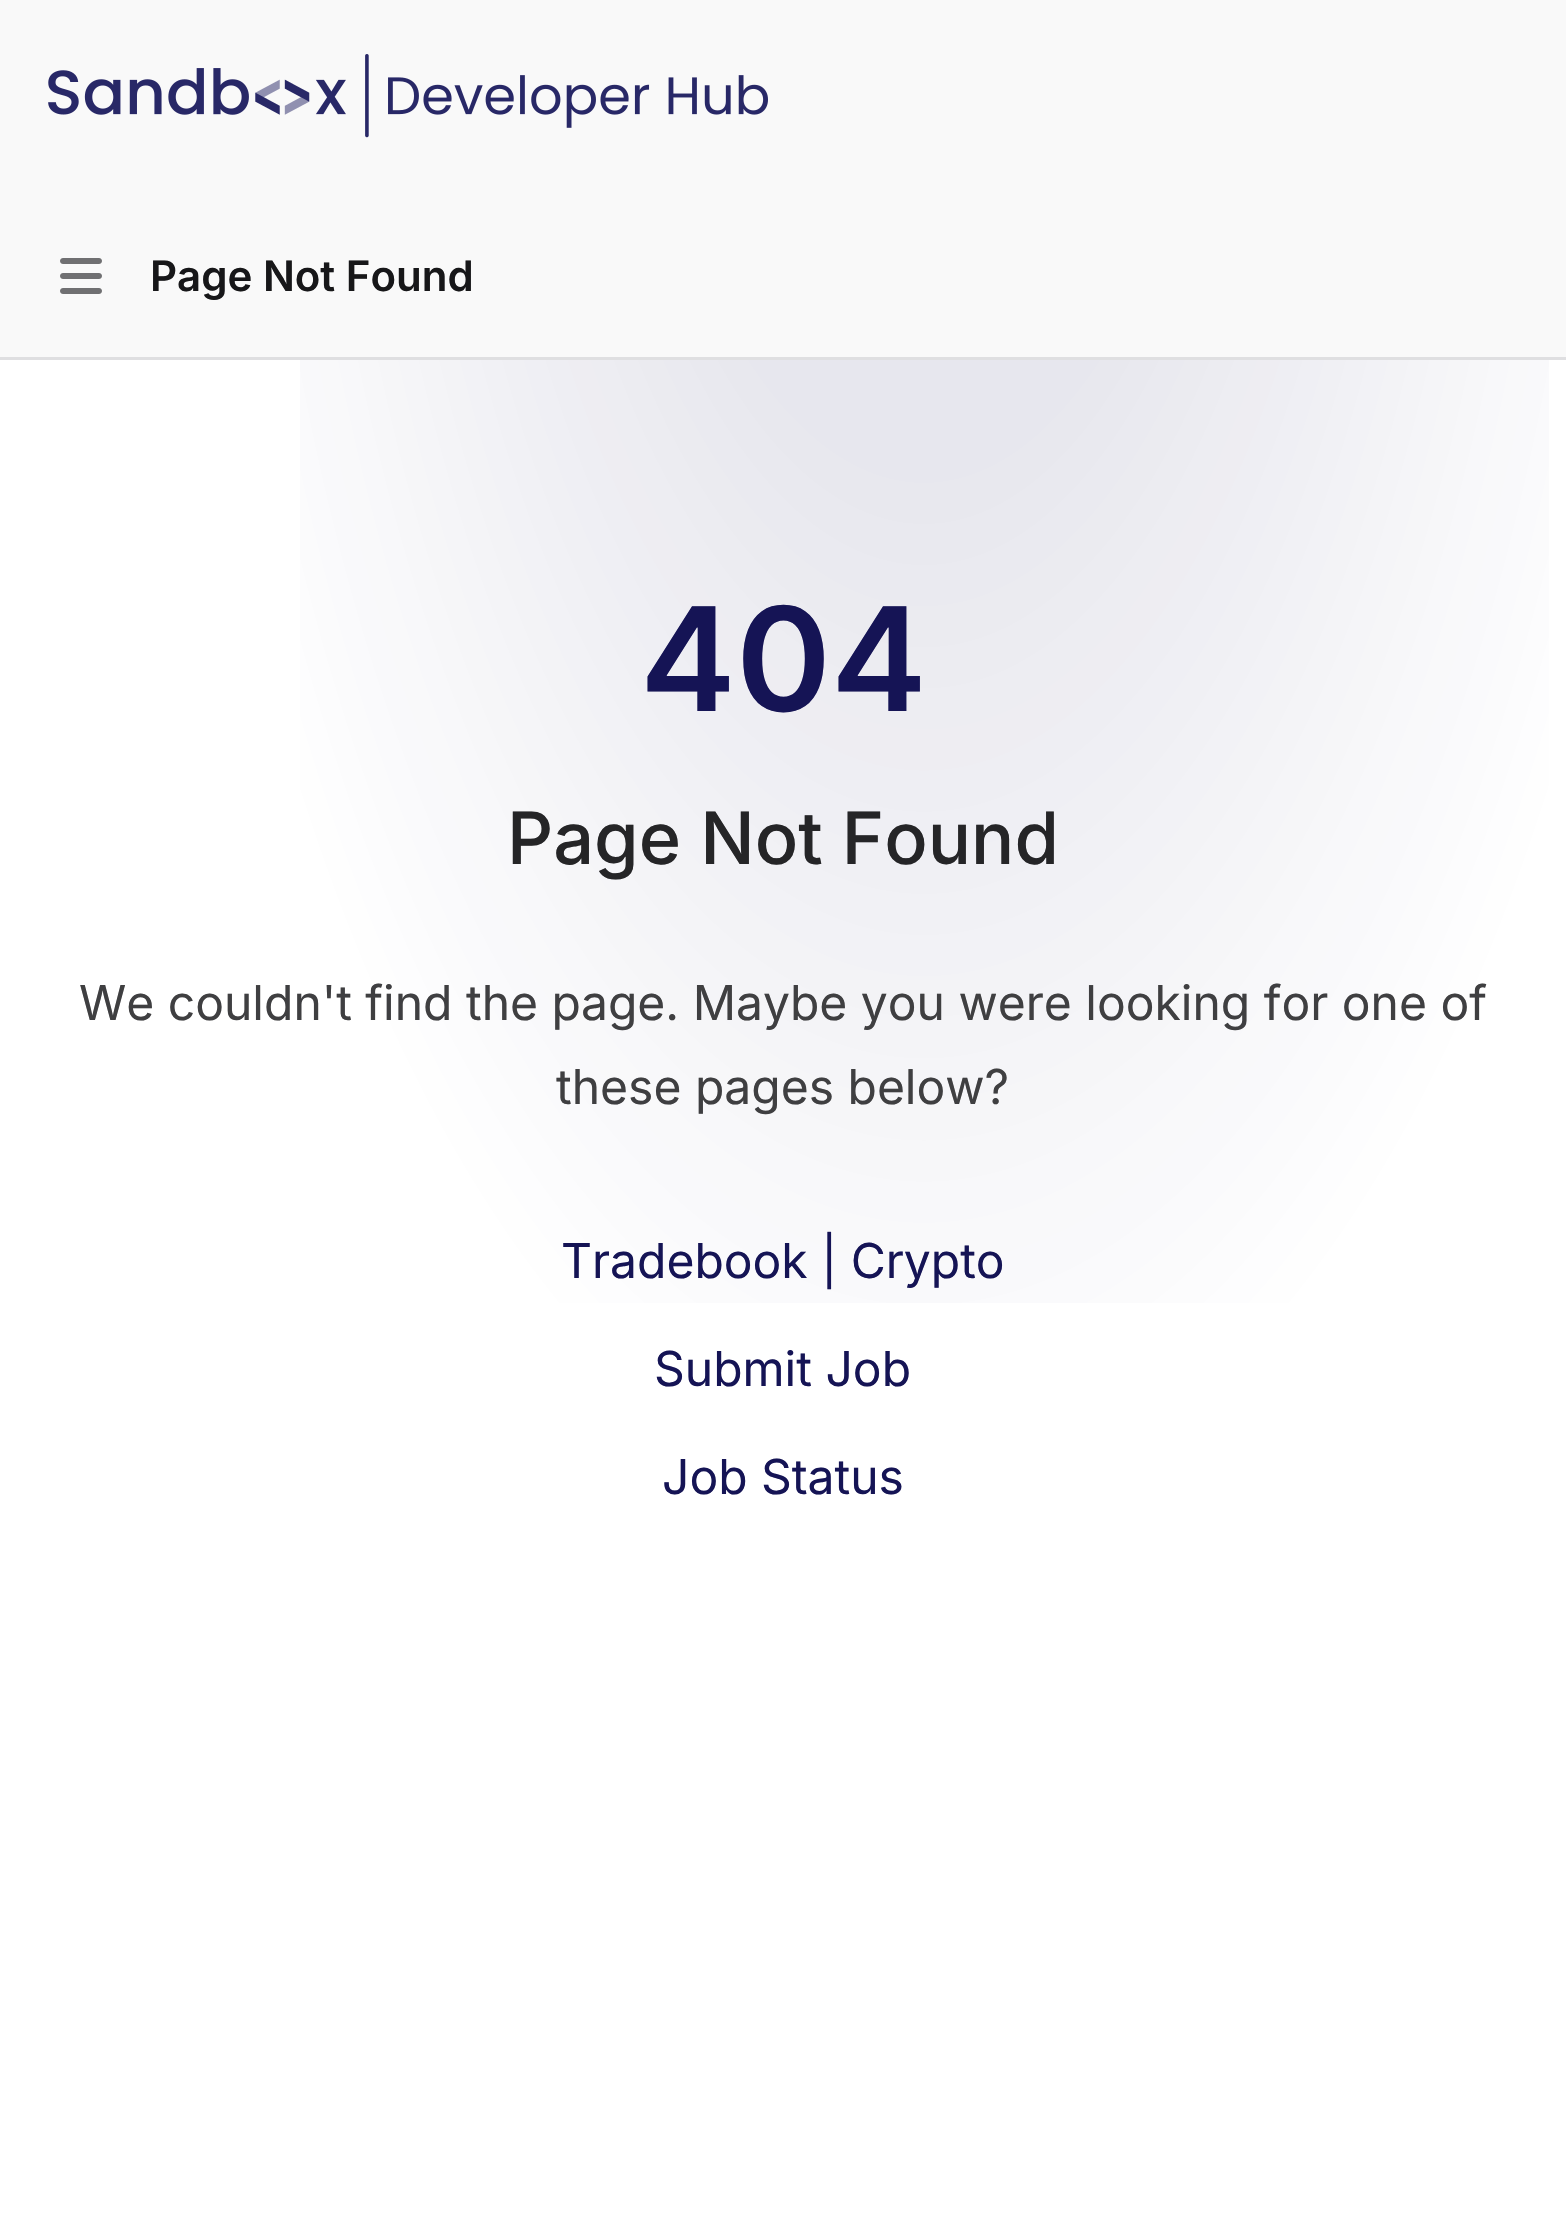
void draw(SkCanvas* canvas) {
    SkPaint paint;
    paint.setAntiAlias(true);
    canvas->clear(0xFFFFFFFF);
    paint.setColor(0xFFF9F9F9);
    canvas->drawRect(SkRect::MakeXYWH(0, 0, 1566, 357), paint);
    paint.setColor(0xFFDFDFE1);
    canvas->drawRect(SkRect::MakeXYWH(0, 357, 1566, 3), paint);
    canvas->drawImageRect(SkImages::DeferredFromEncodedData(SkData::MakeFromFileName("img1.png")), SkRect::MakeXYWH(48, 54, 720, 84), SkSamplingOptions());
    canvas->drawImageRect(SkImages::DeferredFromEncodedData(SkData::MakeFromFileName("img2.png")), SkRect::MakeXYWH(60, 258, 42, 36), SkSamplingOptions());
    SkFont font1(fontMgr->matchFamilyStyle("Inter", SkFontStyle(600, SkFontStyle::kNormal_Width, SkFontStyle::kUpright_Slant)), 42);
    font1.setSubpixel(true);
    paint.setColor(0xFF171719);
    canvas->drawString("Page Not Found", 150, 291, font1, paint);
    {
        const SkColor colors[] = {0x1A151455, 0x00151455};
        const float stops[] = {0.39f, 1};
        SkMatrix m = SkMatrix::Translate(924, -221).preScale(777, 1752);
        paint.setShader(SkGradientShader::MakeRadial({0, 0}, 1, colors, stops, 2, SkTileMode::kClamp, 0, &m));
        paint.setAlpha(255);
    }
    canvas->drawRect(SkRect::MakeXYWH(300, 360, 1249, 943), paint);
    SkFont font2(fontMgr->matchFamilyStyle("Inter", SkFontStyle(600, SkFontStyle::kNormal_Width, SkFontStyle::kUpright_Slant)), 144);
    font2.setSubpixel(true);
    paint.setShader(nullptr);
    paint.setColor(0xFF151455);
    canvas->drawString("404", 640, 711, font2, paint);
    SkFont font3(fontMgr->matchFamilyStyle("Inter", SkFontStyle(500, SkFontStyle::kNormal_Width, SkFontStyle::kUpright_Slant)), 72);
    font3.setSubpixel(true);
    paint.setColor(0xFF252527);
    canvas->drawString("Page Not Found", 507, 864, font3, paint);
    SkFont font4(fontMgr->matchFamilyStyle("Inter", SkFontStyle::Normal()), 48);
    font4.setSubpixel(true);
    paint.setColor(0xFF3F3F41);
    canvas->drawString("We couldn't find the page. Maybe you were looking for one of", 79, 1020, font4, paint);
    canvas->drawString("these pages below?", 556, 1104, font4, paint);
    paint.setColor(0xFF151455);
    canvas->drawString("Tradebook | Crypto", 561, 1278, font4, paint);
    canvas->drawString("Submit Job", 654, 1386, font4, paint);
    canvas->drawString("Job Status", 662, 1494, font4, paint);
}
